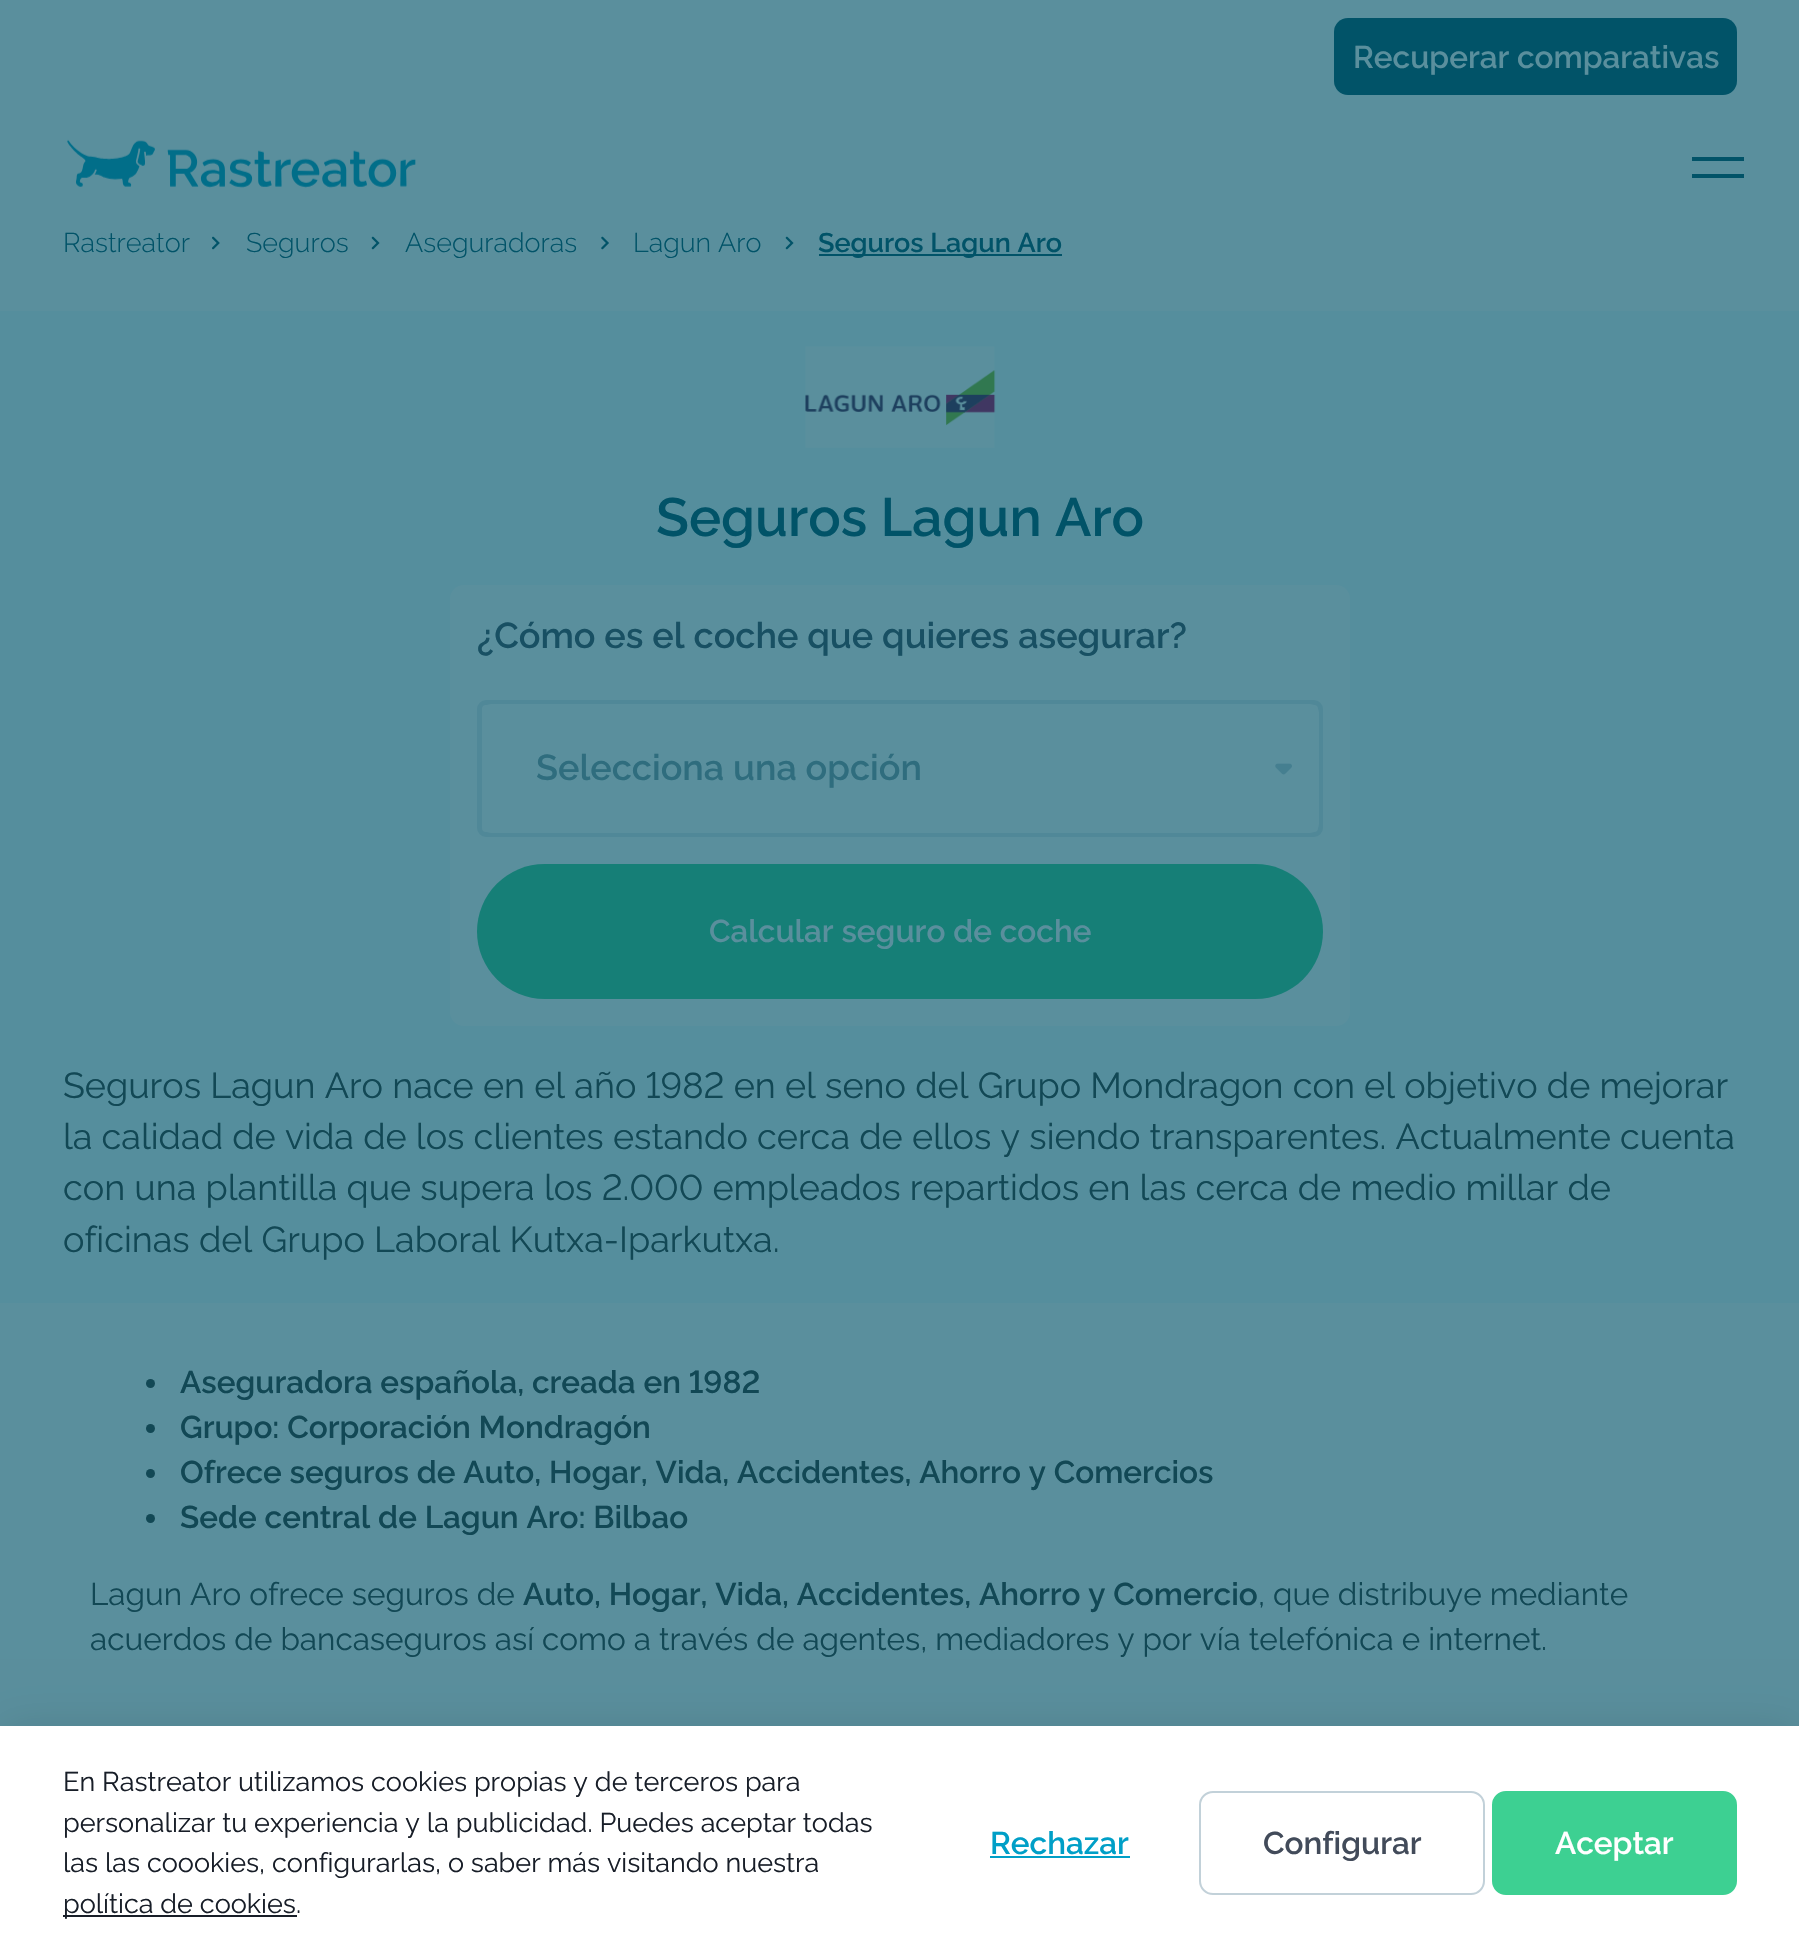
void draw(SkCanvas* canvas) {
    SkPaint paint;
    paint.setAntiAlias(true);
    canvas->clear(0xFF5A8F9D);
    paint.setColor(0xFF015368);
    canvas->drawRoundRect(SkRect::MakeXYWH(1334, 18, 403, 77), 14, 14, paint);
    SkFont font1(fontMgr->matchFamilyStyle("Raleway", SkFontStyle(600, SkFontStyle::kNormal_Width, SkFontStyle::kUpright_Slant)), 31.5f);
    font1.setSubpixel(true);
    paint.setColor(0xFF5A8F9D);
    canvas->drawString("Recuperar comparativas", 1353, 68, font1, paint);
    canvas->drawImageRect(SkImages::DeferredFromEncodedData(SkData::MakeFromFileName("img1.png")), SkRect::MakeXYWH(67, 139, 349, 49), SkSamplingOptions());
    paint.setColor(0xFF015368);
    canvas->drawPath(SkPathBuilder(SkPathFillType::kEvenOdd).moveTo(1692, 157).lineTo(1744, 157).lineTo(1744, 161).lineTo(1692, 161).close().moveTo(1692, 178).lineTo(1692, 174).lineTo(1744, 174).lineTo(1744, 178).close().detach(), paint);
    SkFont font2(fontMgr->matchFamilyStyle("Raleway", SkFontStyle(300, SkFontStyle::kNormal_Width, SkFontStyle::kUpright_Slant)), 27);
    font2.setSubpixel(true);
    canvas->drawString("Rastreator", 63, 252, font2, paint);
    canvas->drawImageRect(SkImages::DeferredFromEncodedData(SkData::MakeFromFileName("img2.png")), SkRect::MakeXYWH(212, 236, 8, 14), SkSamplingOptions());
    canvas->drawString("Seguros", 246, 252, font2, paint);
    canvas->drawImageRect(SkImages::DeferredFromEncodedData(SkData::MakeFromFileName("img3.png")), SkRect::MakeXYWH(371, 236, 9, 14), SkSamplingOptions());
    canvas->drawString("Aseguradoras", 405, 252, font2, paint);
    canvas->drawImageRect(SkImages::DeferredFromEncodedData(SkData::MakeFromFileName("img4.png")), SkRect::MakeXYWH(601, 236, 8, 14), SkSamplingOptions());
    canvas->drawString("Lagun Aro", 633, 252, font2, paint);
    canvas->drawImageRect(SkImages::DeferredFromEncodedData(SkData::MakeFromFileName("img3.png")), SkRect::MakeXYWH(785, 236, 9, 14), SkSamplingOptions());
    canvas->drawRect(SkRect::MakeXYWH(819, 254, 243, 2), paint);
    SkFont font3(fontMgr->matchFamilyStyle("Raleway", SkFontStyle(600, SkFontStyle::kNormal_Width, SkFontStyle::kUpright_Slant)), 27);
    font3.setSubpixel(true);
    canvas->drawString("Seguros Lagun Aro", 818, 252, font3, paint);
    paint.setColor(0xFF558E9D);
    canvas->drawRect(SkRect::MakeXYWH(0, 311, 1799, 992), paint);
    canvas->drawImageRect(SkImages::DeferredFromEncodedData(SkData::MakeFromFileName("img5.png")), SkRect::MakeXYWH(805, 346, 191, 102), SkSamplingOptions());
    SkFont font4(fontMgr->matchFamilyStyle("Raleway", SkFontStyle(600, SkFontStyle::kNormal_Width, SkFontStyle::kUpright_Slant)), 54);
    font4.setSubpixel(true);
    paint.setColor(0xFF015368);
    canvas->drawString("Seguros Lagun Aro", 656, 536, font4, paint);
    paint.setColor(0xFF5A8F9D);
    canvas->drawRoundRect(SkRect::MakeXYWH(450, 585, 900, 441), 14, 14, paint);
    SkFont font5(fontMgr->matchFamilyStyle("Raleway", SkFontStyle(600, SkFontStyle::kNormal_Width, SkFontStyle::kUpright_Slant)), 36);
    font5.setSubpixel(true);
    paint.setColor(0xFF185063);
    canvas->drawString("¿Cómo es el coche que quieres asegurar?", 477, 648, font5, paint);
    paint.setStyle(SkPaint::kStroke_Style);
    paint.setStrokeWidth(5);
    paint.setColor(0xFF508898);
    canvas->drawRoundRect(SkRect::MakeXYWH(479.5f, 702.5f, 841, 132), 6.5f, 6.5f, paint);
    paint.setStyle(SkPaint::kFill_Style);
    paint.setColor(0xFF5A8F9D);
    canvas->drawRoundRect(SkRect::MakeXYWH(482, 704, 837, 129), 9, 9, paint);
    canvas->drawImageRect(SkImages::DeferredFromEncodedData(SkData::MakeFromFileName("img6.png")), SkRect::MakeXYWH(1275, 763, 17, 12), SkSamplingOptions());
    paint.setColor(0xFF2F6D7E);
    canvas->drawString("Selecciona una opción", 536, 780, font5, paint);
    paint.setColor(0xFF167F77);
    canvas->drawRoundRect(SkRect::MakeXYWH(477, 864, 846, 135), 67.5f, 67.5f, paint);
    paint.setColor(0xFF5A8F9D);
    canvas->drawString("Calcular seguro de coche", 709, 942, font1, paint);
    SkFont font6(fontMgr->matchFamilyStyle("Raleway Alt", SkFontStyle::Normal()), 36);
    font6.setSubpixel(true);
    paint.setColor(0xFF124855);
    canvas->drawString("Seguros Lagun Aro nace en el año 1982 en el seno del Grupo Mondragon con el objetivo de mejorar", 63, 1098, font6, paint);
    SkFont font7(fontMgr->matchFamilyStyle("Raleway", SkFontStyle::Normal()), 36);
    font7.setSubpixel(true);
    canvas->drawString("la calidad de vida de los clientes estando cerca de ellos y siendo transparentes. Actualmente cuenta", 63, 1149, font7, paint);
    canvas->drawString("con una plantilla que supera los 2.000 empleados repartidos en las cerca de medio millar de", 63, 1200, font6, paint);
    canvas->drawString("oficinas del Grupo Laboral Kutxa-Iparkutxa.", 63, 1252, font7, paint);
    canvas->drawCircle(150.5f, 1383.5f, 4.5f, paint);
    SkFont font8(fontMgr->matchFamilyStyle("Raleway Alt", SkFontStyle(600, SkFontStyle::kNormal_Width, SkFontStyle::kUpright_Slant)), 31.5f);
    font8.setSubpixel(true);
    canvas->drawString("Aseguradora española, creada en 1982", 180, 1393, font8, paint);
    canvas->drawCircle(150.5f, 1428.5f, 4.5f, paint);
    canvas->drawString("Grupo: Corporación Mondragón", 180, 1438, font1, paint);
    canvas->drawCircle(150.5f, 1473.5f, 4.5f, paint);
    canvas->drawString("Ofrece seguros de Auto, Hogar, Vida, Accidentes, Ahorro y Comercios", 180, 1483, font1, paint);
    canvas->drawCircle(150.5f, 1518.5f, 4.5f, paint);
    canvas->drawString("Sede central de Lagun Aro: Bilbao", 180, 1528, font1, paint);
    SkFont font9(fontMgr->matchFamilyStyle("Raleway", SkFontStyle::Normal()), 31.5f);
    font9.setSubpixel(true);
    canvas->drawString("Lagun Aro ofrece seguros de", 90, 1605, font9, paint);
    canvas->drawString("Auto, Hogar, Vida, Accidentes, Ahorro y Comercio", 523, 1605, font1, paint);
    canvas->drawString(", que distribuye mediante", 1258, 1605, font9, paint);
    canvas->drawString("acuerdos de bancaseguros así como a través de agentes, mediadores y por vía telefónica e internet.", 90, 1650, font9, paint);
    paint.setColor(0x1A000000);
    paint.setMaskFilter(SkMaskFilter::MakeBlur(kNormal_SkBlurStyle, 22.5f));
    canvas->drawRect(SkRect::MakeXYWH(0, 1726, 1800, 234), paint);
    paint.setMaskFilter(nullptr);
    paint.setColor(0xFFFFFFFF);
    canvas->drawRect(SkRect::MakeXYWH(0, 1726, 1799, 232), paint);
    SkFont font10(fontMgr->matchFamilyStyle("Raleway", SkFontStyle::Normal()), 27);
    font10.setSubpixel(true);
    paint.setColor(0xFF181E28);
    canvas->drawString("En Rastreator utilizamos cookies propias y de terceros para", 63, 1791, font10, paint);
    canvas->drawString("personalizar tu experiencia y la publicidad. Puedes aceptar todas", 63, 1832, font10, paint);
    canvas->drawString("las las coookies, configurarlas, o saber más visitando nuestra", 63, 1872, font10, paint);
    canvas->drawRect(SkRect::MakeXYWH(63, 1915, 234, 2), paint);
    canvas->drawString("política de cookies.", 63, 1913, font10, paint);
    paint.setColor(0xFF009FC7);
    canvas->drawString("Rechazar", 990, 1854, font1, paint);
    canvas->drawRect(SkRect::MakeXYWH(990, 1856, 140, 2), paint);
    paint.setStyle(SkPaint::kStroke_Style);
    paint.setStrokeWidth(2);
    paint.setColor(0xFFC2D1D9);
    canvas->drawRoundRect(SkRect::MakeXYWH(1200, 1792, 284, 102), 13, 13, paint);
    paint.setStyle(SkPaint::kFill_Style);
    paint.setColor(0xFF424B5A);
    canvas->drawString("Configurar", 1263, 1854, font1, paint);
    paint.setColor(0xFF3DD092);
    canvas->drawRoundRect(SkRect::MakeXYWH(1493, 1792, 243, 102), 13, 13, paint);
    paint.setStyle(SkPaint::kStroke_Style);
    canvas->drawRoundRect(SkRect::MakeXYWH(1493, 1792, 243, 102), 13, 13, paint);
    paint.setStyle(SkPaint::kFill_Style);
    paint.setColor(0xFFFFFFFF);
    canvas->drawString("Aceptar", 1555, 1854, font1, paint);
}
